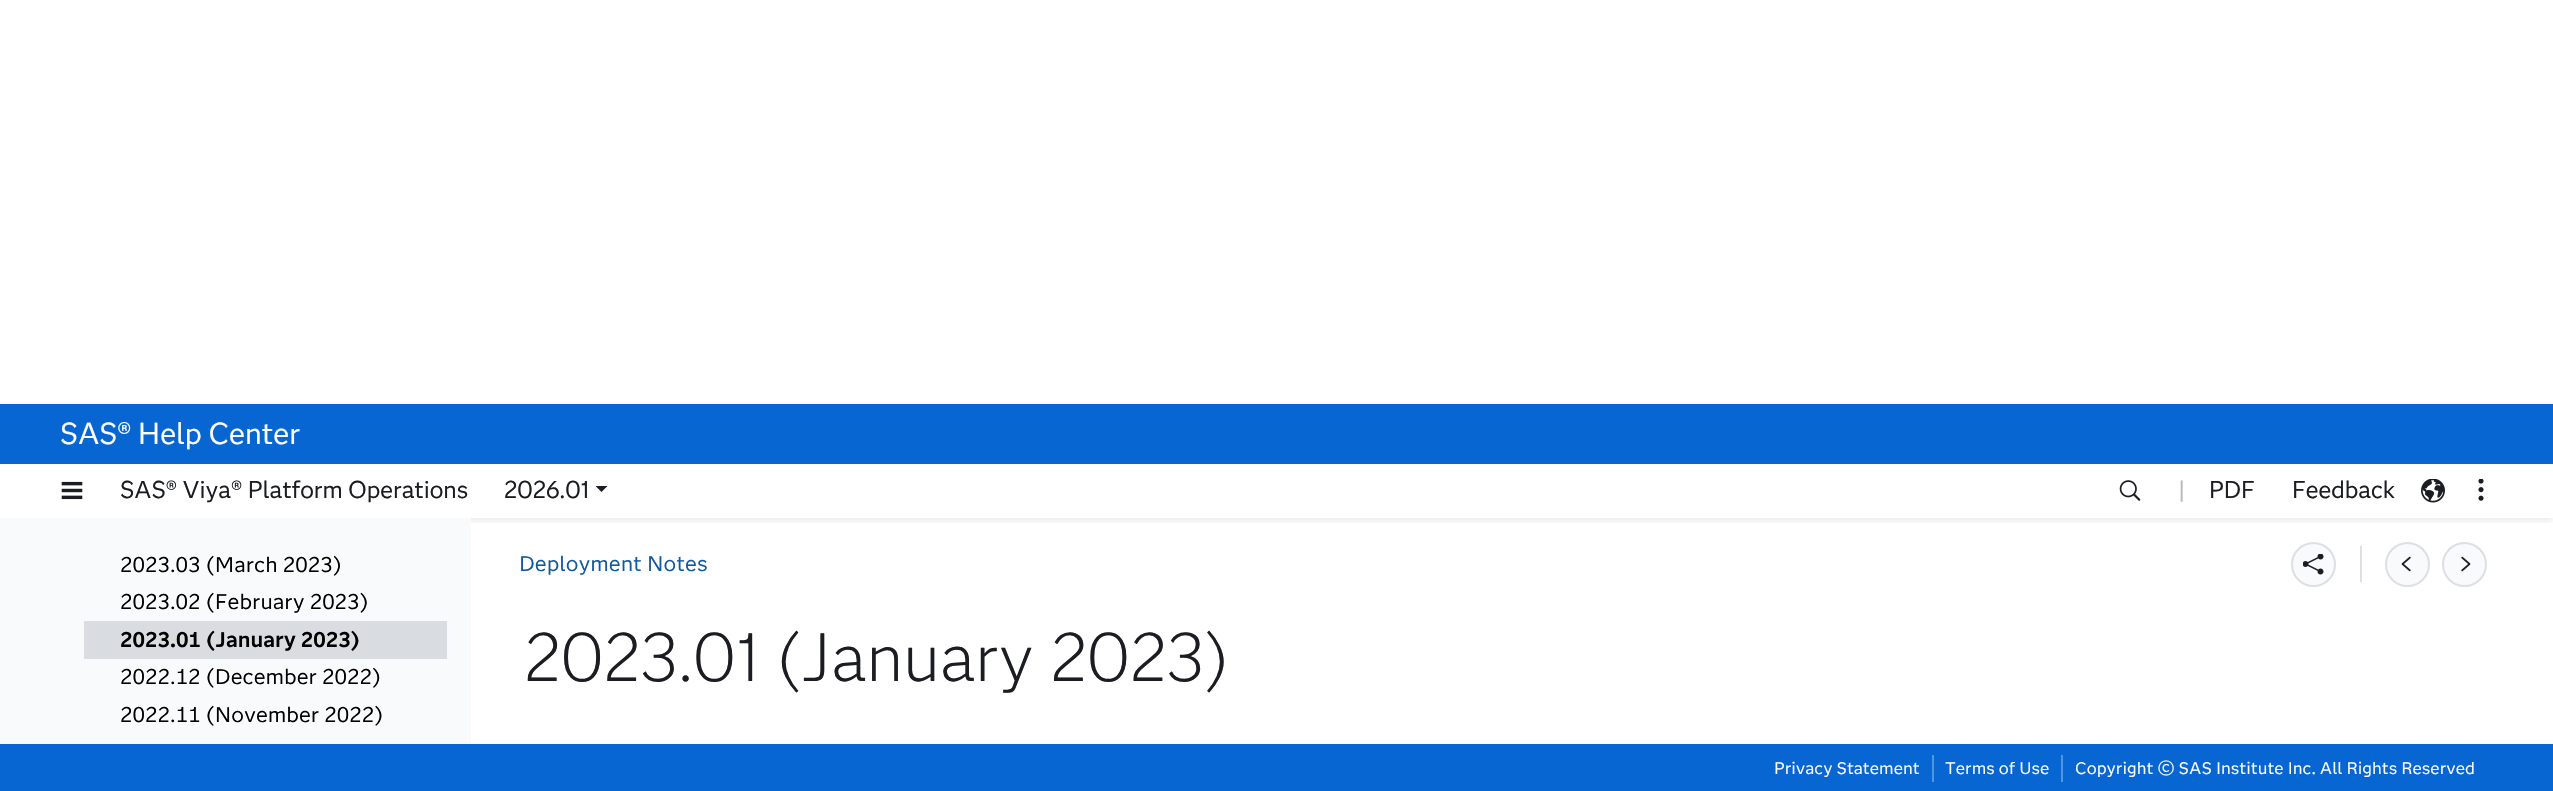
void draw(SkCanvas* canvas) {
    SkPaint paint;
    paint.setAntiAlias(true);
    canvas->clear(0xFFFFFFFF);
    canvas->save();
    canvas->clipRect(SkRect::MakeXYWH(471, 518, 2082, 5));
    paint.setColor(0x14000000);
    paint.setMaskFilter(SkMaskFilter::MakeBlur(kNormal_SkBlurStyle, 3));
    canvas->drawRect(SkRect::MakeXYWH(0, 399, 2553, 122), paint);
    paint.setMaskFilter(nullptr);
    canvas->restore();
    paint.setColor(0xFF0766D1);
    canvas->drawRect(SkRect::MakeXYWH(0, 404, 2553, 60), paint);
    SkFont font1(fontMgr->matchFamilyStyle("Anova", SkFontStyle::Normal()), 30);
    font1.setSubpixel(true);
    paint.setColor(0xFFFFFFFF);
    canvas->drawString("SAS® Help Center", 60, 444, font1, paint);
    canvas->drawRect(SkRect::MakeXYWH(0, 517, 2553, 1), paint);
    canvas->drawImageRect(SkImages::DeferredFromEncodedData(SkData::MakeFromFileName("img1.png")), SkRect::MakeXYWH(61, 481, 22, 19), SkSamplingOptions());
    SkFont font2(fontMgr->matchFamilyStyle("Anova", SkFontStyle::Normal()), 24);
    font2.setSubpixel(true);
    paint.setColor(0xFF1B1D22);
    canvas->drawString("SAS® Viya® Platform Operations", 120, 498, font2, paint);
    canvas->drawString("2026.01", 504, 498, font2, paint);
    canvas->drawPath(SkPathBuilder().moveTo(595.5f, 486).lineTo(607.5f, 486).lineTo(601.5f, 492).close().detach(), paint);
    canvas->drawImageRect(SkImages::DeferredFromEncodedData(SkData::MakeFromFileName("img2.png")), SkRect::MakeXYWH(2119, 480, 22, 21), SkSamplingOptions());
    paint.setColor(0xFFBBBBBD);
    canvas->drawString("|", 2178, 498, font2, paint);
    paint.setColor(0xFF1B1D22);
    canvas->drawString("PDF", 2209, 498, font2, paint);
    canvas->drawString("Feedback", 2292, 498, font2, paint);
    canvas->drawImageRect(SkImages::DeferredFromEncodedData(SkData::MakeFromFileName("img3.png")), SkRect::MakeXYWH(2421, 479, 24, 24), SkSamplingOptions());
    canvas->drawImageRect(SkImages::DeferredFromEncodedData(SkData::MakeFromFileName("img4.png")), SkRect::MakeXYWH(2478, 479, 6, 22), SkSamplingOptions());
    paint.setColor(0xFFF9FAFB);
    canvas->drawRect(SkRect::MakeXYWH(0, 518, 471, 226), paint);
    SkFont font3(fontMgr->matchFamilyStyle("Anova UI", SkFontStyle::Normal()), 21);
    font3.setSubpixel(true);
    paint.setColor(0xFF000000);
    canvas->drawString("2023.03 (March 2023)", 120, 572, font3, paint);
    canvas->drawString("2023.02 (February 2023)", 120, 609, font3, paint);
    paint.setColor(0xFFD9DDE2);
    canvas->drawRect(SkRect::MakeXYWH(84, 621, 363, 38), paint);
    SkFont font4(fontMgr->matchFamilyStyle("Anova UI", SkFontStyle::Bold()), 21);
    font4.setSubpixel(true);
    paint.setColor(0xFF000000);
    canvas->drawString("2023.01 (January 2023)", 120, 647, font4, paint);
    canvas->drawString("2022.12 (December 2022)", 120, 684, font3, paint);
    canvas->drawString("2022.11 (November 2022)", 120, 722, font3, paint);
    paint.setColor(0xFF10599E);
    canvas->drawString("Deployment Notes", 519, 571, font3, paint);
    paint.setColor(0xFFF9FAFB);
    canvas->drawCircle(2313.5f, 564.5f, 21.5f, paint);
    paint.setStyle(SkPaint::kStroke_Style);
    paint.setStrokeWidth(2);
    paint.setColor(0xFFDDDFE4);
    canvas->drawCircle(2313.5f, 564.5f, 21.5f, paint);
    canvas->drawImageRect(SkImages::DeferredFromEncodedData(SkData::MakeFromFileName("img5.png")), SkRect::MakeXYWH(2303, 554, 21, 21), SkSamplingOptions());
    paint.setStyle(SkPaint::kFill_Style);
    canvas->drawRect(SkRect::MakeXYWH(2360, 546, 2, 36), paint);
    paint.setColor(0xFFF9FAFB);
    canvas->drawCircle(2407.5f, 564.5f, 21.5f, paint);
    paint.setStyle(SkPaint::kStroke_Style);
    paint.setColor(0xFFDDDFE4);
    canvas->drawCircle(2407.5f, 564.5f, 21.5f, paint);
    canvas->drawImageRect(SkImages::DeferredFromEncodedData(SkData::MakeFromFileName("img6.png")), SkRect::MakeXYWH(2401, 556, 10, 16), SkSamplingOptions());
    paint.setStyle(SkPaint::kFill_Style);
    paint.setColor(0xFFF9FAFB);
    canvas->drawCircle(2464.5f, 564.5f, 21.5f, paint);
    paint.setStyle(SkPaint::kStroke_Style);
    paint.setColor(0xFFDDDFE4);
    canvas->drawCircle(2464.5f, 564.5f, 21.5f, paint);
    canvas->drawImageRect(SkImages::DeferredFromEncodedData(SkData::MakeFromFileName("img7.png")), SkRect::MakeXYWH(2461, 556, 10, 16), SkSamplingOptions());
    SkFont font5(fontMgr->matchFamilyStyle("Anova", SkFontStyle(300, SkFontStyle::kNormal_Width, SkFontStyle::kUpright_Slant)), 67.5f);
    font5.setSubpixel(true);
    paint.setStyle(SkPaint::kFill_Style);
    paint.setColor(0xFF1B1D22);
    canvas->drawString("2023.01 (January 2023)", 524, 681, font5, paint);
    paint.setColor(0xFF0766D1);
    canvas->drawRect(SkRect::MakeXYWH(0, 744, 2553, 47), paint);
    SkFont font6(fontMgr->matchFamilyStyle("Anova UI", SkFontStyle::Normal()), 16.5f);
    font6.setSubpixel(true);
    paint.setColor(0xFFFFFFFF);
    canvas->drawString("Privacy Statement", 1774, 774, font6, paint);
    paint.setColor(0xFF5194DF);
    canvas->drawRect(SkRect::MakeXYWH(1932, 755, 2, 27), paint);
    paint.setColor(0xFFFFFFFF);
    canvas->drawString("Terms of Use", 1945, 774, font6, paint);
    paint.setColor(0xFF5194DF);
    canvas->drawRect(SkRect::MakeXYWH(2061, 755, 2, 27), paint);
    paint.setColor(0xFFFFFFFF);
    canvas->drawString("Copyright © SAS Institute Inc. All Rights Reserved", 2075, 774, font6, paint);
}
